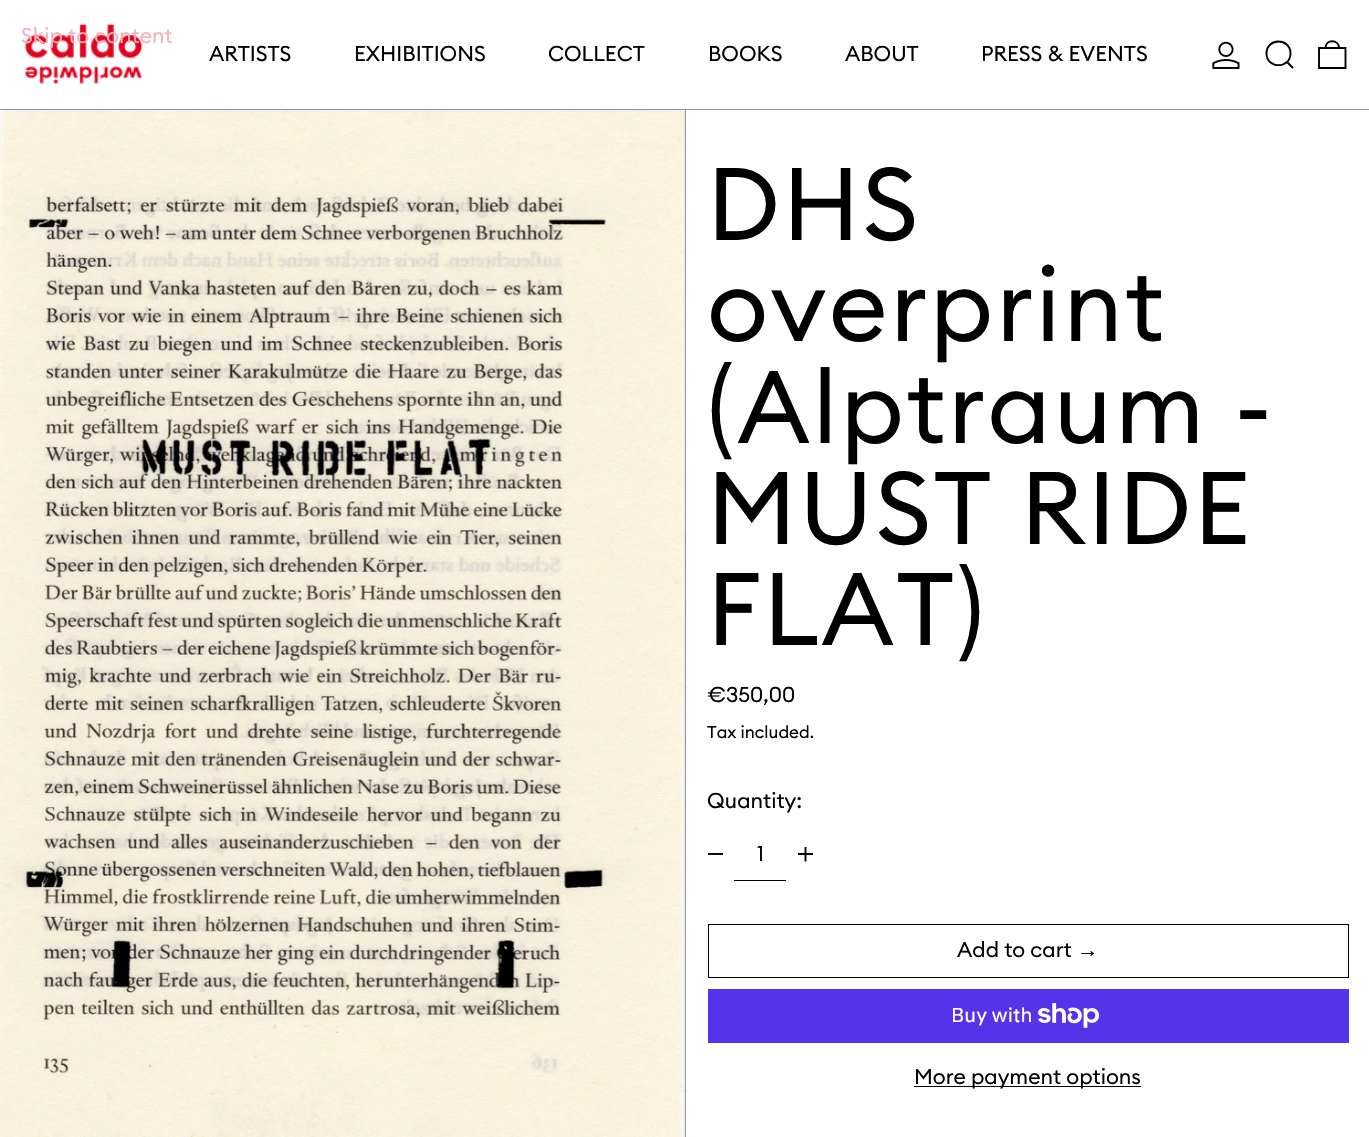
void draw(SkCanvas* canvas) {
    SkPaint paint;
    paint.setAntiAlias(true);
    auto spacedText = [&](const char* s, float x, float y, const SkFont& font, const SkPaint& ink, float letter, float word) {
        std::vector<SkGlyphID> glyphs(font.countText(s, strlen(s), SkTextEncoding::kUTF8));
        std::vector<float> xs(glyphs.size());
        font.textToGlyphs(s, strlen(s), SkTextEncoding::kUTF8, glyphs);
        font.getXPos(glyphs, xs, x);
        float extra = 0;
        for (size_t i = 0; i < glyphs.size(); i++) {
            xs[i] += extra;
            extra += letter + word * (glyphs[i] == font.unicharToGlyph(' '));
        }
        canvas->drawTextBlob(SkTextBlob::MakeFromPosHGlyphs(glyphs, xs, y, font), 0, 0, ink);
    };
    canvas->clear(0xFFFFFFFF);
    canvas->drawImageRect(SkImages::DeferredFromEncodedData(SkData::MakeFromFileName("img1.png")), SkRect::MakeXYWH(24, 23, 119, 61), SkSamplingOptions());
    SkFont font1(fontMgr->matchFamilyStyle("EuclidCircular", SkFontStyle::Normal()), 21.25f);
    font1.setSubpixel(true);
    paint.setColor(0xFFF6B2BA);
    canvas->drawString("Skip to content", 21, 43, font1, paint);
    paint.setColor(0xFF9494B8);
    canvas->drawRect(SkRect::MakeXYWH(0, 109, 1369, 1), paint);
    paint.setColor(0xFF000000);
    canvas->drawString("ARTISTS", 209, 61, font1, paint);
    canvas->drawString("EXHIBITIONS", 354, 61, font1, paint);
    canvas->drawString("COLLECT", 548, 61, font1, paint);
    canvas->drawString("BOOKS", 708, 61, font1, paint);
    canvas->drawString("ABOUT", 845, 61, font1, paint);
    canvas->drawString("PRESS & EVENTS", 981, 61, font1, paint);
    canvas->drawImageRect(SkImages::DeferredFromEncodedData(SkData::MakeFromFileName("img2.png")), SkRect::MakeXYWH(1212, 41, 28, 28), SkSamplingOptions());
    paint.setStyle(SkPaint::kStroke_Style);
    paint.setStrokeWidth(1.9f);
    canvas->drawPath(SkPathBuilder().moveTo(1266.5f, 53.5f).cubicTo(1266.5f, 69, 1290.5f, 69, 1290.5f, 53.5f).cubicTo(1290.5f, 37.5f, 1266.5f, 37.5f, 1266.5f, 53.5f).close().moveTo(1287, 62).lineTo(1293, 68).detach(), paint);
    canvas->drawPath(SkPathBuilder().moveTo(1319, 48).lineTo(1345.5f, 48).lineTo(1345.5f, 68).lineTo(1319, 68).close().moveTo(1339, 48).cubicTo(1339, 39, 1325.5f, 39, 1325.5f, 48).detach(), paint);
    paint.setStyle(SkPaint::kFill_Style);
    paint.setColor(0xFF9494B8);
    canvas->drawRect(SkRect::MakeXYWH(684, 110, 2, 1027), paint);
    canvas->drawImageRect(SkImages::DeferredFromEncodedData(SkData::MakeFromFileName("img3.png")), SkRect::MakeXYWH(0, 110, 685, 1027), SkSamplingOptions());
    SkFont font2(fontMgr->matchFamilyStyle("EuclidCircular", SkFontStyle::Normal()), 101.25f);
    font2.setSubpixel(true);
    paint.setColor(0xFF000000);
    spacedText("DHS", 707, 240, font2, paint, 2.5f, 0);
    spacedText("overprint", 707, 341, font2, paint, 2.5f, 0);
    spacedText("(Alptraum -", 707, 443, font2, paint, 2.5f, 0);
    spacedText("MUST RIDE", 707, 544, font2, paint, 2.5f, 0);
    spacedText("FLAT)", 707, 645, font2, paint, 2.5f, 0);
    canvas->drawString("€350,00", 707, 702, font1, paint);
    SkFont font3(fontMgr->matchFamilyStyle("EuclidCircular", SkFontStyle::Normal()), 17);
    font3.setSubpixel(true);
    canvas->drawString("Tax included.", 707, 738, font3, paint);
    canvas->drawString("Quantity:", 707, 808, font1, paint);
    paint.setColor(0xFF0D0D0D);
    canvas->drawRect(SkRect::MakeXYWH(708, 853, 15, 2), paint);
    paint.setColor(0xFF000000);
    canvas->drawRect(SkRect::MakeXYWH(734, 880, 52, 1), paint);
    canvas->drawString("1", 757, 861, font1, paint);
    paint.setStyle(SkPaint::kStroke_Style);
    canvas->drawPath(SkPathBuilder().moveTo(805.5f, 847).lineTo(805.5f, 861.5f).moveTo(798, 854).lineTo(813, 854).detach(), paint);
    paint.setStrokeWidth(1);
    canvas->drawRect(SkRect::MakeXYWH(708.5f, 924.5f, 640, 53), paint);
    paint.setStyle(SkPaint::kFill_Style);
    canvas->drawString("Add to cart", 957, 957, font1, paint);
    SkFont font4(fontMgr->matchFamilyStyle("Liberation Sans", SkFontStyle::Normal()), 21.25f);
    font4.setSubpixel(true);
    canvas->drawString("→", 1077, 957, font4, paint);
    paint.setColor(0xFF5433EB);
    canvas->drawRect(SkRect::MakeXYWH(708, 989, 641, 54), paint);
    SkFont font5(fontMgr->matchFamilyStyle("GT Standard", SkFontStyle::Normal()), 20);
    font5.setSubpixel(true);
    paint.setColor(0xFFFFFFFF);
    canvas->drawString("Buy with", 951, 1022, font5, paint);
    canvas->drawImageRect(SkImages::DeferredFromEncodedData(SkData::MakeFromFileName("img4.png")), SkRect::MakeXYWH(1038, 1003, 62, 25), SkSamplingOptions());
    paint.setColor(0xFF000000);
    canvas->drawRect(SkRect::MakeXYWH(914, 1086, 227, 1), paint);
    canvas->drawString("More payment options", 914, 1084, font1, paint);
}
